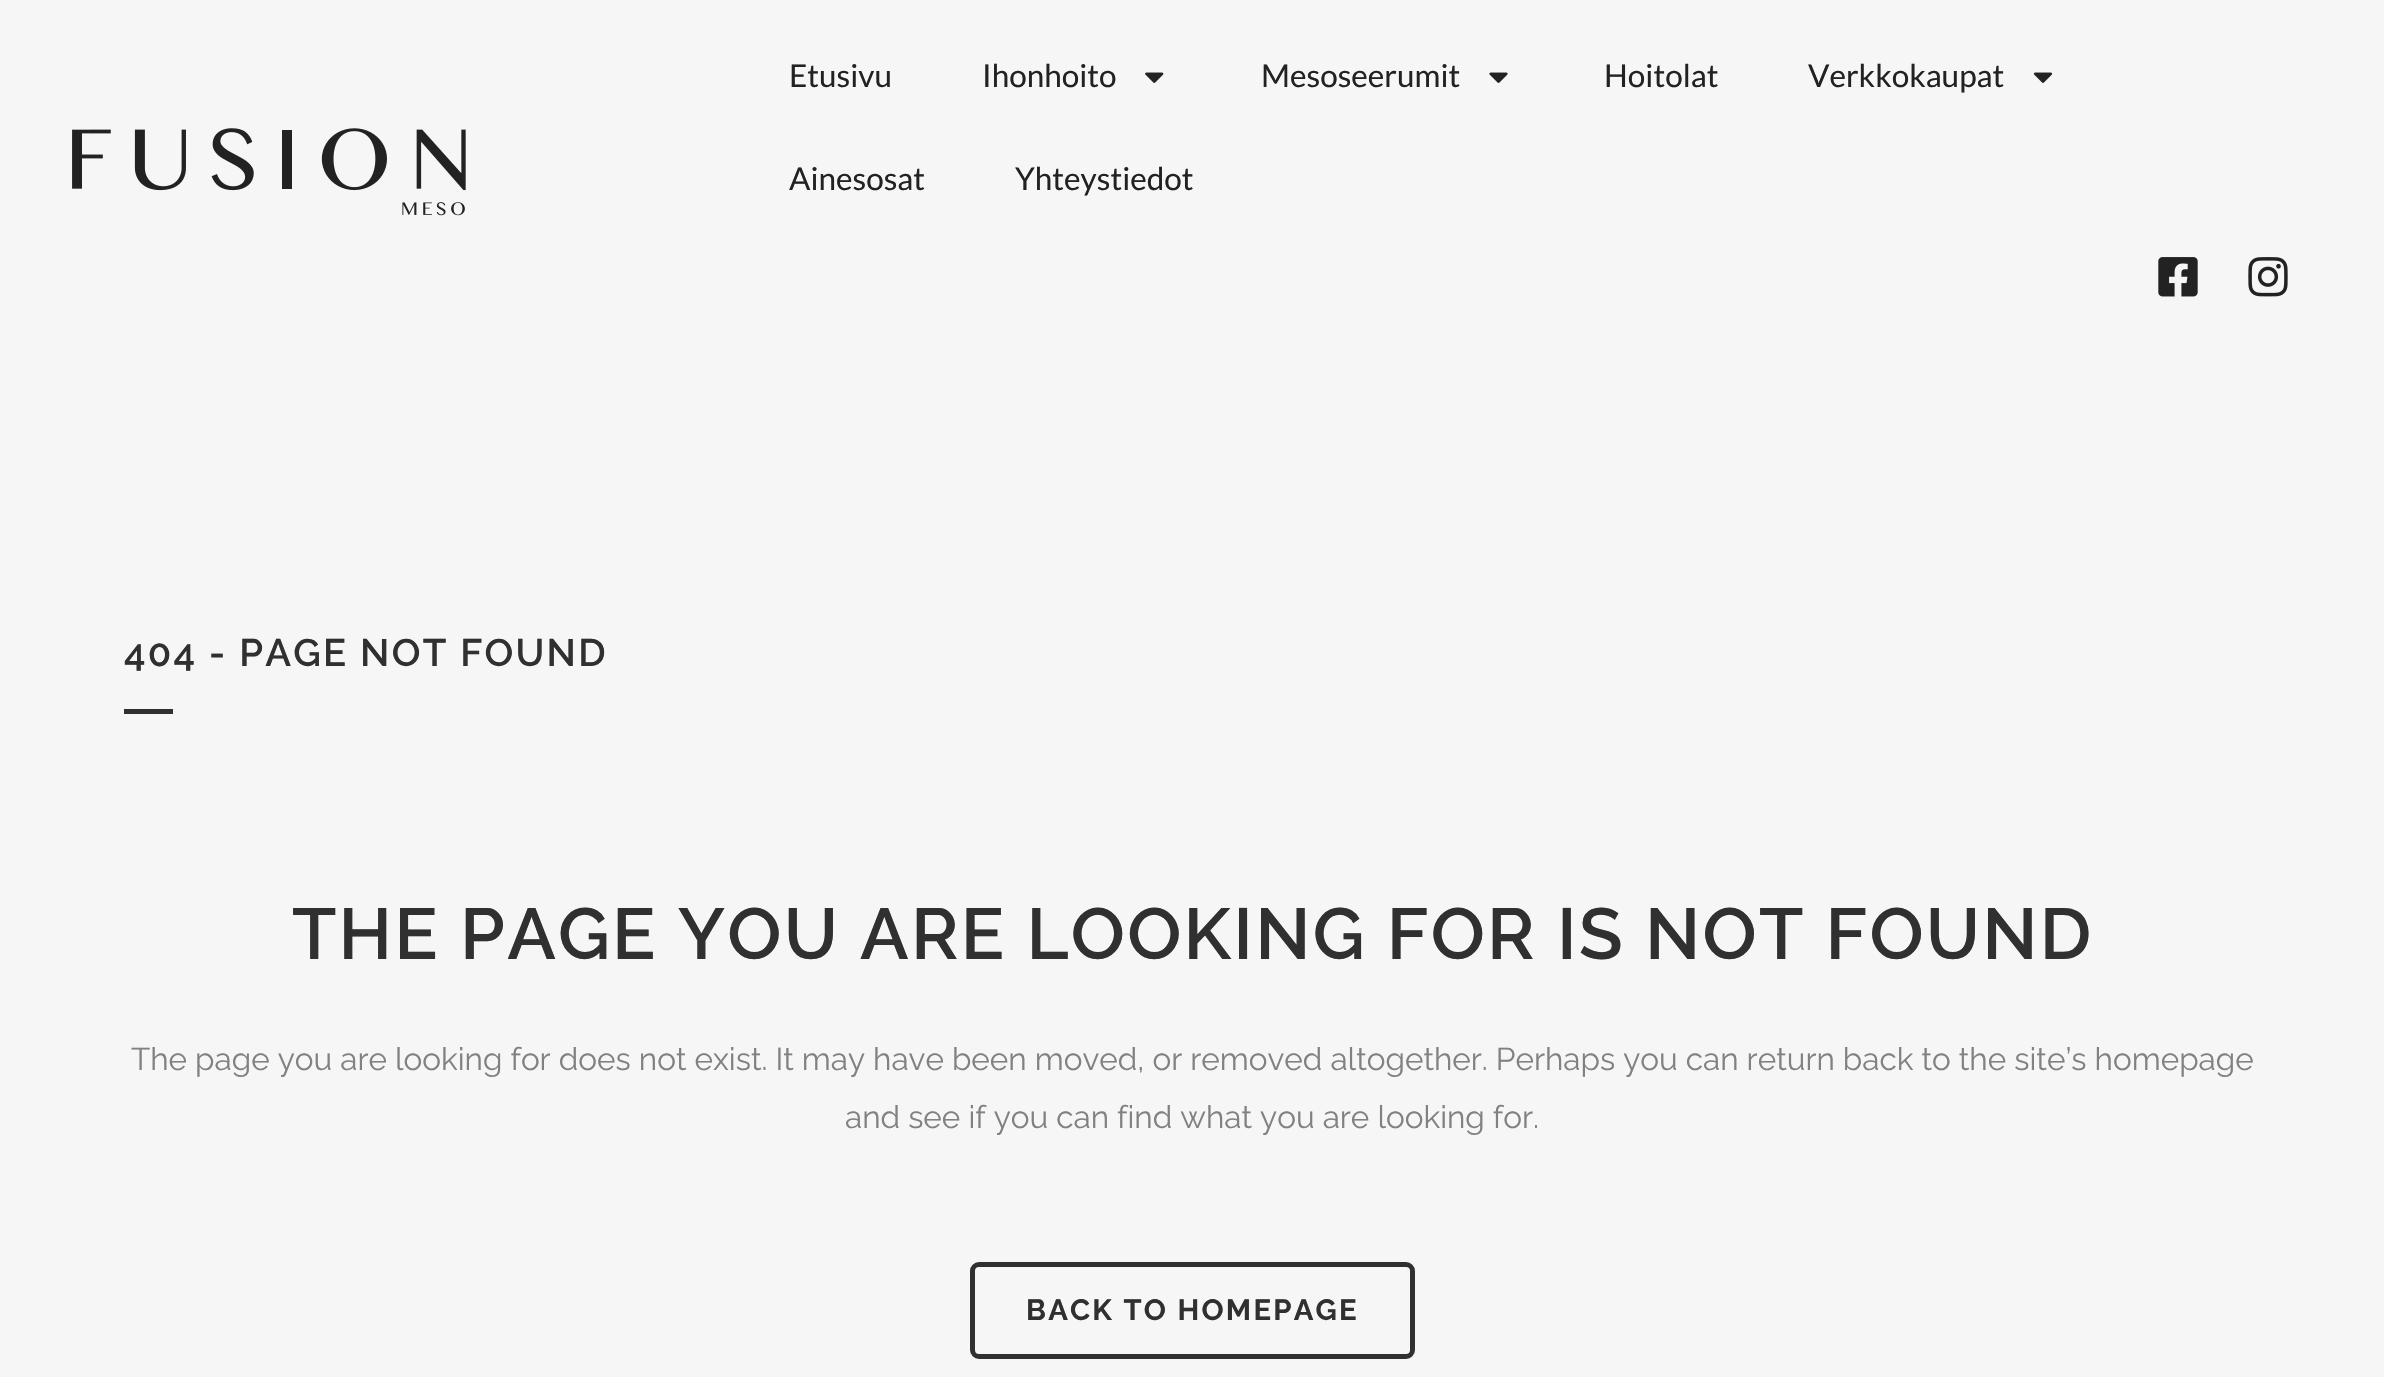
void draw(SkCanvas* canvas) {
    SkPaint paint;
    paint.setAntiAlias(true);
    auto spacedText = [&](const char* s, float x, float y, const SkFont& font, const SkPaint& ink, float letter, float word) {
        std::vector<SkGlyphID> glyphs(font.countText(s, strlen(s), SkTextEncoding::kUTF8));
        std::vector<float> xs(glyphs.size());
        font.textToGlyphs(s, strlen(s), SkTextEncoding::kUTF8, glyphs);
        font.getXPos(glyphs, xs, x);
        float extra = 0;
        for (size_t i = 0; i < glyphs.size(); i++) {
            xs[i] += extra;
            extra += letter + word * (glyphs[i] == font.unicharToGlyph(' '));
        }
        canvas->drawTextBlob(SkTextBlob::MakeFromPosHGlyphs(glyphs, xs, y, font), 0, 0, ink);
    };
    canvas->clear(0xFFF6F6F6);
    canvas->drawImageRect(SkImages::DeferredFromEncodedData(SkData::MakeFromFileName("img1.png")), SkRect::MakeXYWH(72, 128, 394, 88), SkSamplingOptions());
    SkFont font1(fontMgr->matchFamilyStyle("Lato", SkFontStyle::Normal()), 31.5f);
    font1.setSubpixel(true);
    paint.setColor(0xFF222222);
    canvas->drawString("Etusivu", 789, 87, font1, paint);
    canvas->drawString("Ihonhoito", 982, 87, font1, paint);
    canvas->drawImageRect(SkImages::DeferredFromEncodedData(SkData::MakeFromFileName("img2.png")), SkRect::MakeXYWH(1145, 72, 19, 11), SkSamplingOptions());
    canvas->drawString("Mesoseerumit", 1261, 87, font1, paint);
    canvas->drawImageRect(SkImages::DeferredFromEncodedData(SkData::MakeFromFileName("img3.png")), SkRect::MakeXYWH(1489, 72, 19, 11), SkSamplingOptions());
    canvas->drawString("Hoitolat", 1604, 87, font1, paint);
    canvas->drawString("Verkkokaupat", 1808, 87, font1, paint);
    canvas->drawImageRect(SkImages::DeferredFromEncodedData(SkData::MakeFromFileName("img4.png")), SkRect::MakeXYWH(2033, 72, 20, 11), SkSamplingOptions());
    canvas->drawString("Ainesosat", 789, 190, font1, paint);
    canvas->drawString("Yhteystiedot", 1015, 190, font1, paint);
    canvas->drawImageRect(SkImages::DeferredFromEncodedData(SkData::MakeFromFileName("img5.png")), SkRect::MakeXYWH(2158, 257, 40, 40), SkSamplingOptions());
    canvas->drawImageRect(SkImages::DeferredFromEncodedData(SkData::MakeFromFileName("img6.png")), SkRect::MakeXYWH(2248, 257, 40, 40), SkSamplingOptions());
    SkFont font2(fontMgr->matchFamilyStyle("Raleway", SkFontStyle(600, SkFontStyle::kNormal_Width, SkFontStyle::kUpright_Slant)), 38.25f);
    font2.setSubpixel(true);
    paint.setColor(0xFF303030);
    spacedText("404 - PAGE NOT FOUND", 124, 666, font2, paint, 2.25f, 0);
    canvas->drawRect(SkRect::MakeXYWH(124, 709, 49, 5), paint);
    SkFont font3(fontMgr->matchFamilyStyle("Raleway", SkFontStyle(600, SkFontStyle::kNormal_Width, SkFontStyle::kUpright_Slant)), 72);
    font3.setSubpixel(true);
    spacedText("THE PAGE YOU ARE LOOKING FOR IS NOT FOUND", 292, 959, font3, paint, 2.25f, 0);
    SkFont font4(fontMgr->matchFamilyStyle("Raleway", SkFontStyle::Normal()), 31.5f);
    font4.setSubpixel(true);
    paint.setColor(0xFF818181);
    canvas->drawString("The page you are looking for does not exist. It may have been moved, or removed altogether. Perhaps you can return back to the site’s homepage", 131, 1070, font4, paint);
    canvas->drawString("and see if you can find what you are looking for.", 845, 1128, font4, paint);
    paint.setStyle(SkPaint::kStroke_Style);
    paint.setStrokeWidth(5);
    paint.setColor(0xFF303030);
    canvas->drawRoundRect(SkRect::MakeXYWH(972.5f, 1264.5f, 440, 92), 6.5f, 6.5f, paint);
    SkFont font5(fontMgr->matchFamilyStyle("Raleway", SkFontStyle::Bold()), 29.25f);
    font5.setSubpixel(true);
    paint.setStyle(SkPaint::kFill_Style);
    spacedText("BACK TO HOMEPAGE", 1026, 1320, font5, paint, 2.25f, 0);
}
